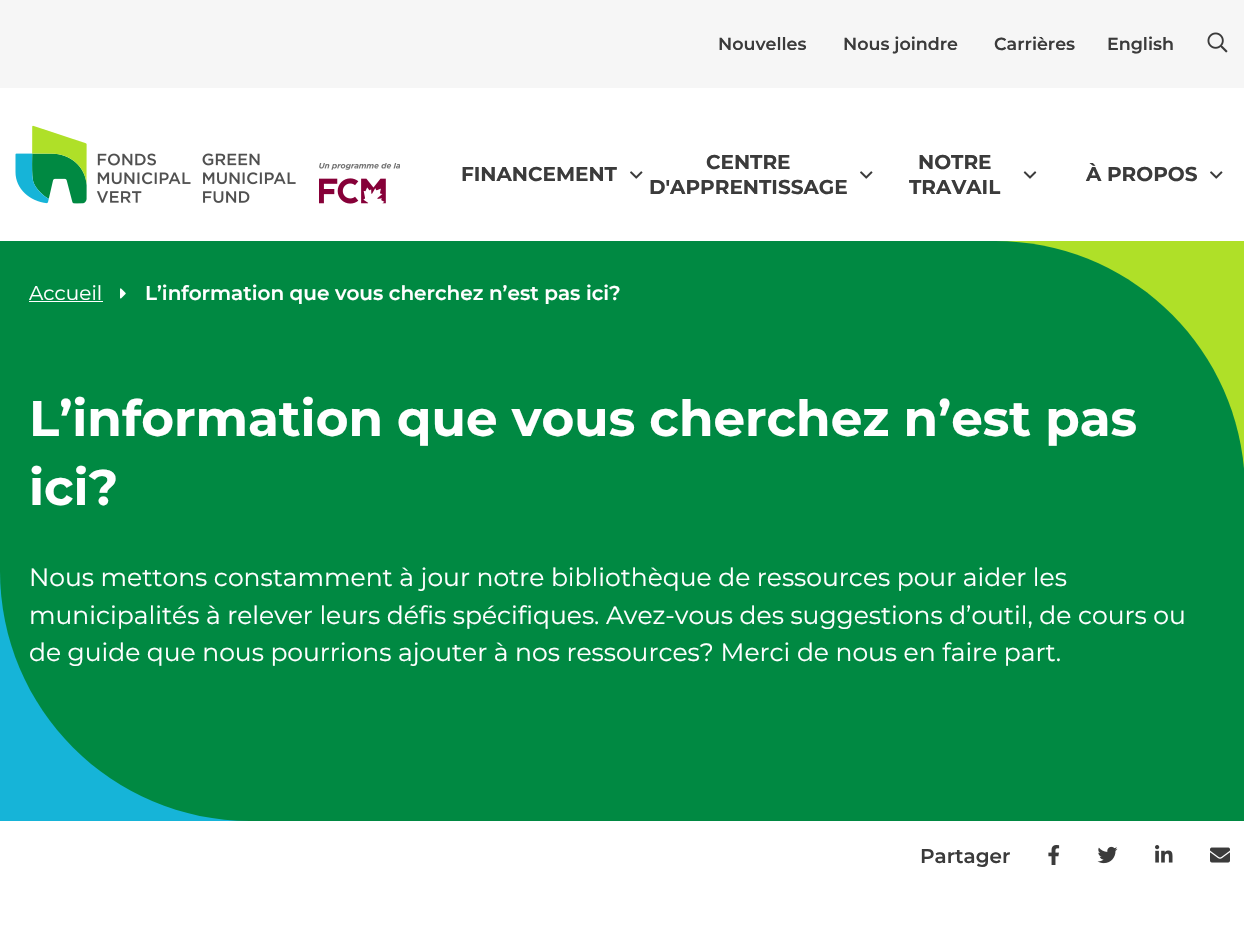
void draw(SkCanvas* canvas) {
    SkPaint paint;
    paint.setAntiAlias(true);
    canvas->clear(0xFFFFFFFF);
    paint.setColor(0xFFF6F6F6);
    canvas->drawRect(SkRect::MakeXYWH(0, 0, 1244, 88), paint);
    SkFont font1(fontMgr->matchFamilyStyle("Montserrat", SkFontStyle(600, SkFontStyle::kNormal_Width, SkFontStyle::kUpright_Slant)), 17.5f);
    font1.setSubpixel(true);
    paint.setColor(0xFF3B3B3B);
    canvas->drawString("Nouvelles", 718, 50, font1, paint);
    canvas->drawString("Nous joindre", 843, 50, font1, paint);
    canvas->drawString("Carrières", 994, 50, font1, paint);
    canvas->drawString("English", 1107, 50, font1, paint);
    canvas->drawImageRect(SkImages::DeferredFromEncodedData(SkData::MakeFromFileName("img1.png")), SkRect::MakeXYWH(1207, 32, 21, 21), SkSamplingOptions());
    canvas->drawImageRect(SkImages::DeferredFromEncodedData(SkData::MakeFromFileName("img2.png")), SkRect::MakeXYWH(15, 125, 281, 79), SkSamplingOptions());
    canvas->drawImageRect(SkImages::DeferredFromEncodedData(SkData::MakeFromFileName("img3.png")), SkRect::MakeXYWH(319, 163, 81, 41), SkSamplingOptions());
    SkFont font2(fontMgr->matchFamilyStyle("Montserrat", SkFontStyle::Bold()), 20);
    font2.setSubpixel(true);
    canvas->drawString("FINANCEMENT", 461, 181, font2, paint);
    canvas->drawImageRect(SkImages::DeferredFromEncodedData(SkData::MakeFromFileName("img4.png")), SkRect::MakeXYWH(630, 171, 13, 8), SkSamplingOptions());
    canvas->drawString("CENTRE", 706, 169, font2, paint);
    canvas->drawImageRect(SkImages::DeferredFromEncodedData(SkData::MakeFromFileName("img4.png")), SkRect::MakeXYWH(860, 171, 13, 8), SkSamplingOptions());
    canvas->drawString("D'APPRENTISSAGE", 649, 194, font2, paint);
    canvas->drawString("NOTRE", 918, 169, font2, paint);
    canvas->drawImageRect(SkImages::DeferredFromEncodedData(SkData::MakeFromFileName("img5.png")), SkRect::MakeXYWH(1023, 171, 14, 8), SkSamplingOptions());
    canvas->drawString("TRAVAIL", 909, 194, font2, paint);
    canvas->drawString("À PROPOS", 1086, 181, font2, paint);
    canvas->drawImageRect(SkImages::DeferredFromEncodedData(SkData::MakeFromFileName("img4.png")), SkRect::MakeXYWH(1210, 171, 13, 8), SkSamplingOptions());
    paint.setColor(0xFF16B4D8);
    canvas->drawRect(SkRect::MakeXYWH(0, 572, 248, 249), paint);
    paint.setColor(0xFFAFE028);
    canvas->drawRect(SkRect::MakeXYWH(997, 241, 247, 228), paint);
    paint.setColor(0xFF008942);
    canvas->drawPath(SkPathBuilder().moveTo(0, 241).lineTo(995, 241).cubicTo(1133, 241, 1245, 353, 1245, 491).lineTo(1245, 821).lineTo(250, 821).cubicTo(112, 821, 0, 709, 0, 571).close().detach(), paint);
    SkFont font3(fontMgr->matchFamilyStyle("Montserrat", SkFontStyle::Normal()), 20);
    font3.setSubpixel(true);
    paint.setColor(0xFFFFFFFF);
    canvas->drawString("Accueil", 29, 300, font3, paint);
    canvas->drawRect(SkRect::MakeXYWH(29, 301, 74, 1), paint);
    canvas->drawImageRect(SkImages::DeferredFromEncodedData(SkData::MakeFromFileName("img6.png")), SkRect::MakeXYWH(120, 288, 6, 11), SkSamplingOptions());
    SkFont font4(fontMgr->matchFamilyStyle("Montserrat", SkFontStyle(600, SkFontStyle::kNormal_Width, SkFontStyle::kUpright_Slant)), 20);
    font4.setSubpixel(true);
    canvas->drawString("L’information que vous cherchez n’est pas ici?", 145, 300, font4, paint);
    SkFont font5(fontMgr->matchFamilyStyle("Montserrat", SkFontStyle::Bold()), 50);
    font5.setSubpixel(true);
    canvas->drawString("L’information que vous cherchez n’est pas", 29, 436, font5, paint);
    canvas->drawString("ici?", 29, 505, font5, paint);
    SkFont font6(fontMgr->matchFamilyStyle("Montserrat", SkFontStyle::Normal()), 25);
    font6.setSubpixel(true);
    canvas->drawString("Nous mettons constamment à jour notre bibliothèque de ressources pour aider les", 29, 586, font6, paint);
    canvas->drawString("municipalités à relever leurs défis spécifiques. Avez-vous des suggestions d’outil, de cours ou", 29, 624, font6, paint);
    canvas->drawString("de guide que nous pourrions ajouter à nos ressources? Merci de nous en faire part.", 29, 661, font6, paint);
    paint.setColor(0xFF3B3B3B);
    canvas->drawString("Partager", 920, 863, font4, paint);
    canvas->drawImageRect(SkImages::DeferredFromEncodedData(SkData::MakeFromFileName("img7.png")), SkRect::MakeXYWH(1048, 845, 12, 20), SkSamplingOptions());
    canvas->drawImageRect(SkImages::DeferredFromEncodedData(SkData::MakeFromFileName("img8.png")), SkRect::MakeXYWH(1097, 846, 21, 18), SkSamplingOptions());
    canvas->drawImageRect(SkImages::DeferredFromEncodedData(SkData::MakeFromFileName("img9.png")), SkRect::MakeXYWH(1155, 845, 18, 18), SkSamplingOptions());
    canvas->drawImageRect(SkImages::DeferredFromEncodedData(SkData::MakeFromFileName("img10.png")), SkRect::MakeXYWH(1210, 847, 20, 16), SkSamplingOptions());
}
